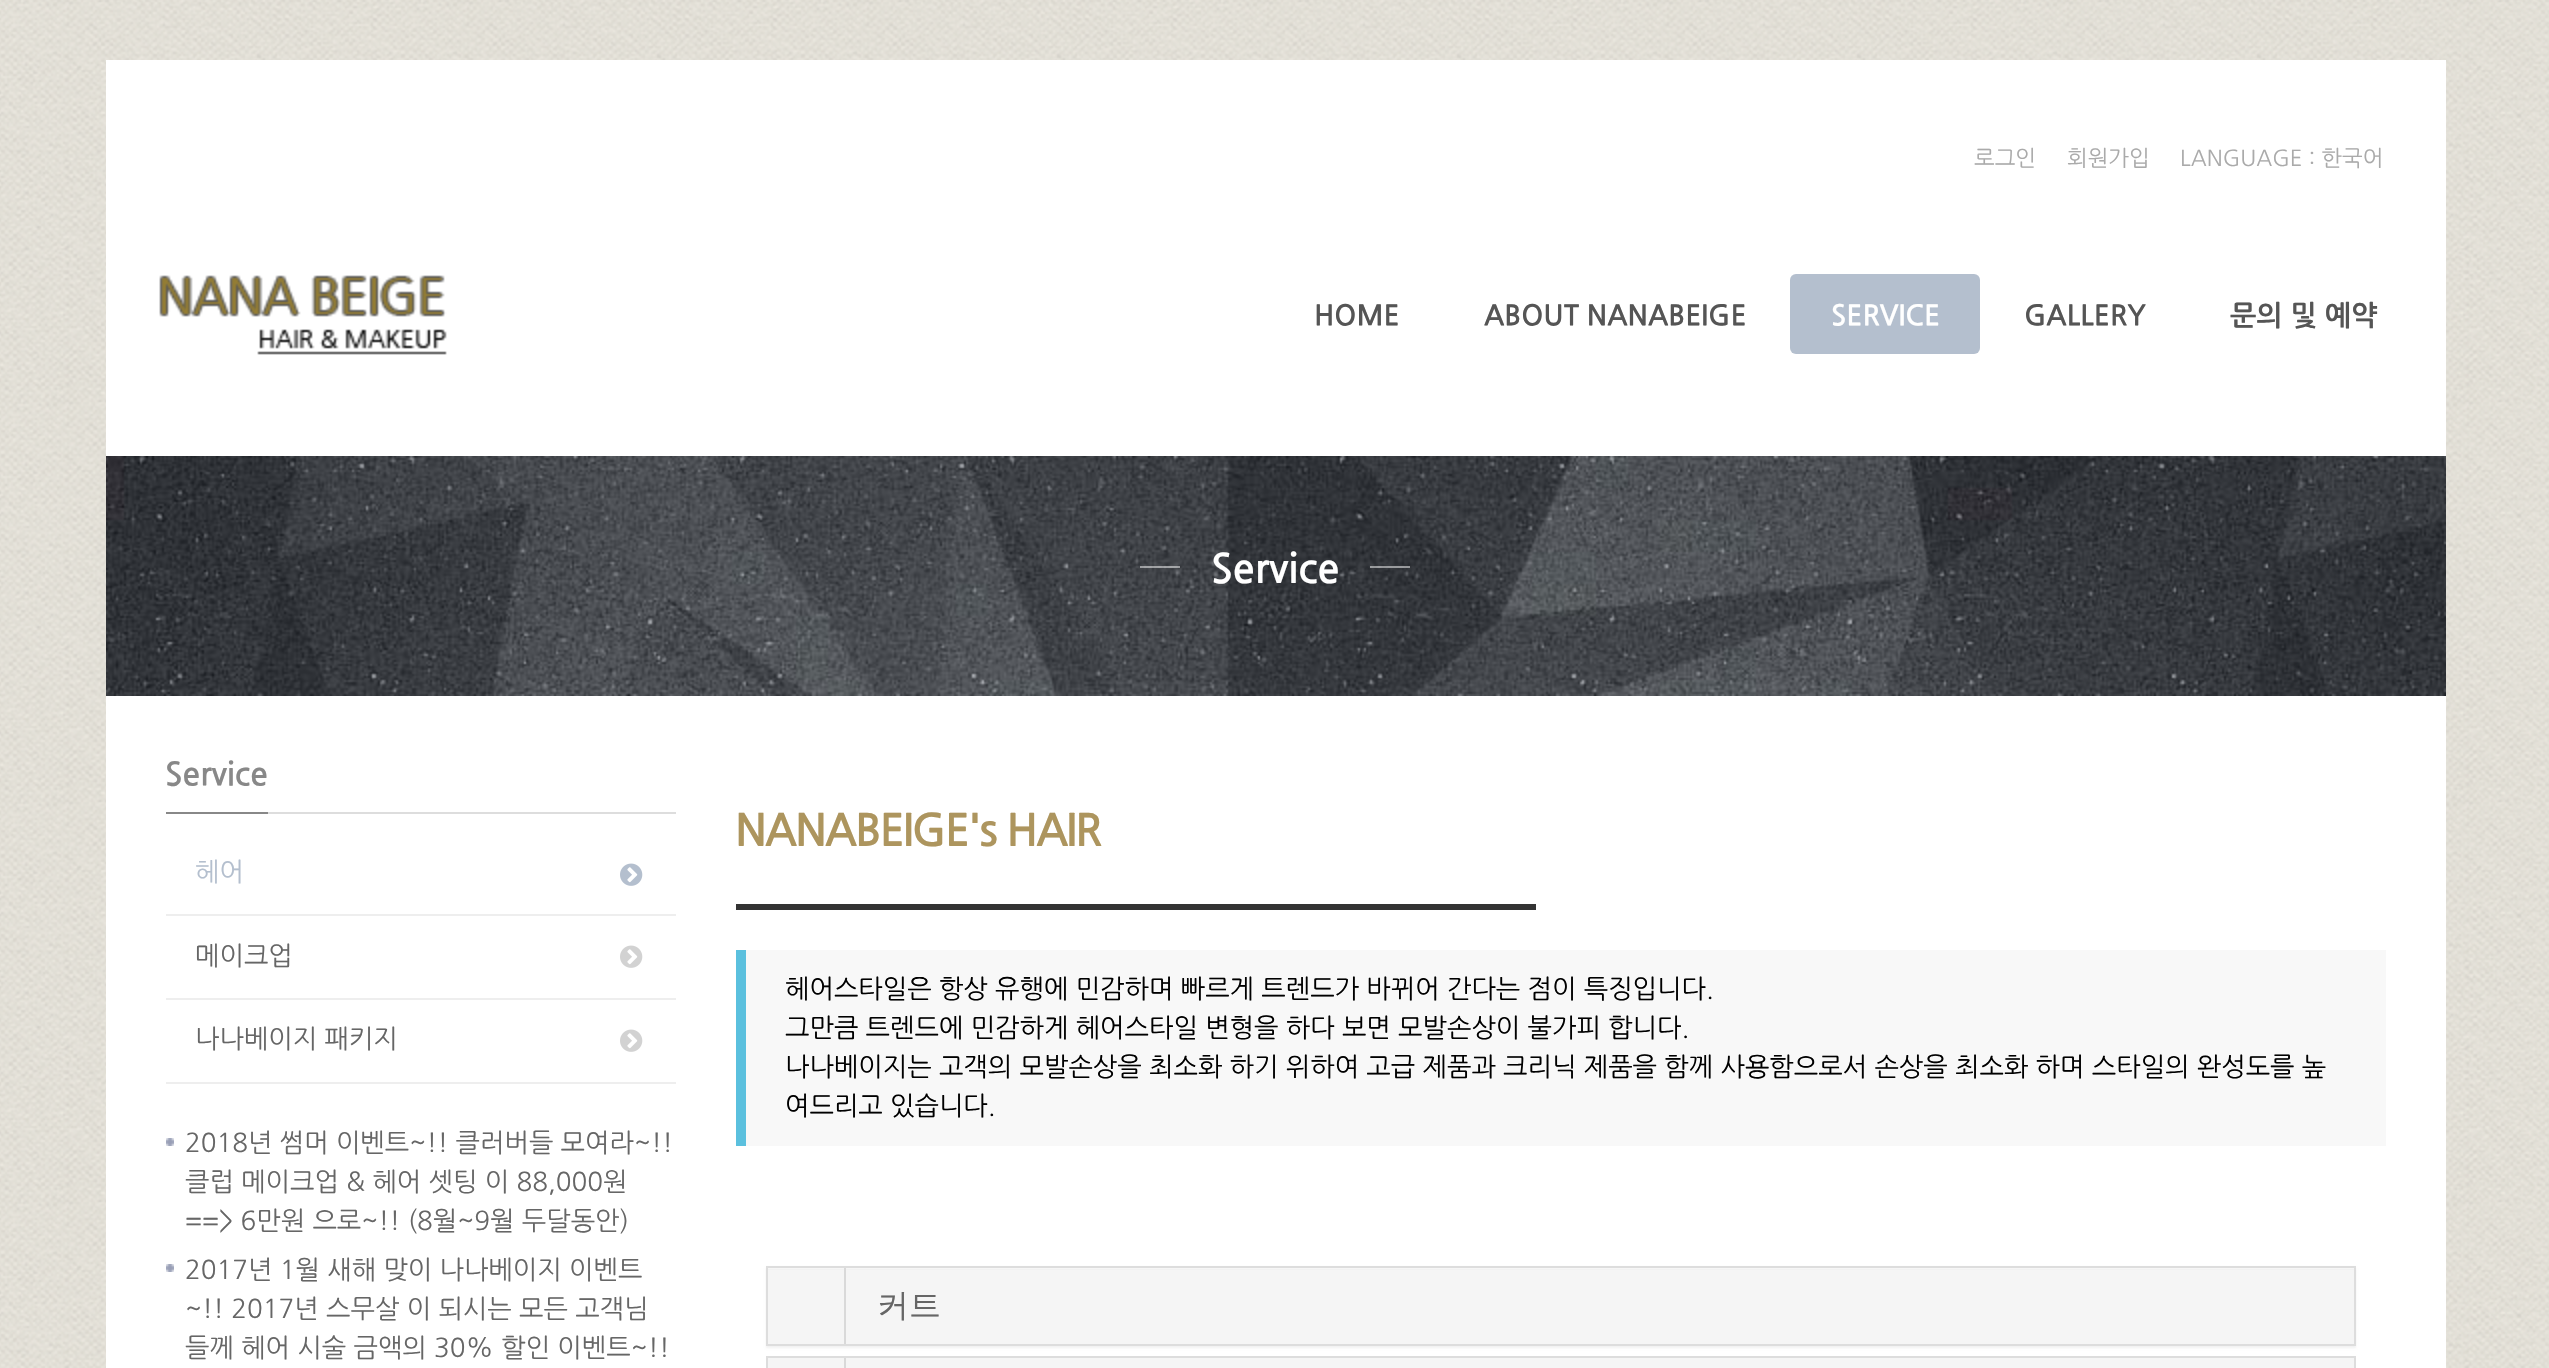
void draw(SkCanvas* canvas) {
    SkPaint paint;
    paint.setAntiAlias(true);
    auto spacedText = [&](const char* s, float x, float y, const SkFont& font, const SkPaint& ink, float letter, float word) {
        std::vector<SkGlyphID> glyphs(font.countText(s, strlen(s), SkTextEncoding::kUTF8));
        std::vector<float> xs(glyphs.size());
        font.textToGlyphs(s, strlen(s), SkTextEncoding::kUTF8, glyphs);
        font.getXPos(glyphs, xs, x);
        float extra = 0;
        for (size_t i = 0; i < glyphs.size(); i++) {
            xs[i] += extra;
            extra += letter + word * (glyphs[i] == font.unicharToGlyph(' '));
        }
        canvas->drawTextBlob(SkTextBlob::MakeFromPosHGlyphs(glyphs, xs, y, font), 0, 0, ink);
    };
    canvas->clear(0xFFFFFFFF);
    canvas->drawImageRect(SkImages::DeferredFromEncodedData(SkData::MakeFromFileName("img1.png")), SkRect::MakeXYWH(0, 0, 2549, 1368), SkSamplingOptions());
    paint.setColor(0xFFFFFFFF);
    canvas->drawRect(SkRect::MakeXYWH(106, 60, 2340, 1308), paint);
    SkFont font1(fontMgr->matchFamilyStyle("NanumGothic", SkFontStyle::Normal()), 22);
    font1.setSubpixel(true);
    paint.setColor(0xFFAAAAAA);
    canvas->drawString("로그인", 1974, 166, font1, paint);
    canvas->drawString("회원가입", 2067, 166, font1, paint);
    canvas->drawString("LANGUAGE : 한국어", 2180, 166, font1, paint);
    canvas->drawImageRect(SkImages::DeferredFromEncodedData(SkData::MakeFromFileName("img2.png")), SkRect::MakeXYWH(159, 275, 288, 80), SkSamplingOptions());
    SkFont font2(fontMgr->matchFamilyStyle("NanumGothic", SkFontStyle::Bold()), 28);
    font2.setSubpixel(true);
    paint.setColor(0xFF555555);
    canvas->drawString("HOME", 1314, 324, font2, paint);
    canvas->drawString("ABOUT NANABEIGE", 1484, 324, font2, paint);
    paint.setColor(0xFFB4BFCE);
    canvas->drawRoundRect(SkRect::MakeXYWH(1790, 274, 190, 80), 6, 6, paint);
    paint.setColor(0xFFFFFFFF);
    canvas->drawString("SERVICE", 1831, 324, font2, paint);
    paint.setColor(0xFF555555);
    canvas->drawString("GALLERY", 2024, 324, font2, paint);
    canvas->drawString("문의 및 예약", 2230, 324, font2, paint);
    canvas->drawImageRect(SkImages::DeferredFromEncodedData(SkData::MakeFromFileName("img3.png")), SkRect::MakeXYWH(106, 456, 2340, 240), SkSamplingOptions());
    paint.setColor(0x80FFFFFF);
    canvas->drawRect(SkRect::MakeXYWH(1140, 566, 40, 2), paint);
    SkFont font3(fontMgr->matchFamilyStyle("NanumGothic", SkFontStyle::Bold()), 40);
    font3.setSubpixel(true);
    paint.setColor(0xFFFFFFFF);
    canvas->drawString("Service", 1211, 581, font3, paint);
    paint.setColor(0x80FFFFFF);
    canvas->drawRect(SkRect::MakeXYWH(1370, 566, 40, 2), paint);
    paint.setColor(0xFFDDDDDD);
    canvas->drawRect(SkRect::MakeXYWH(268, 812, 408, 2), paint);
    paint.setColor(0xFF888888);
    canvas->drawRect(SkRect::MakeXYWH(166, 812, 102, 2), paint);
    SkFont font4(fontMgr->matchFamilyStyle("NanumGothic", SkFontStyle::Bold()), 32);
    font4.setSubpixel(true);
    canvas->drawString("Service", 165, 784, font4, paint);
    paint.setColor(0xFFEEEEEE);
    canvas->drawRect(SkRect::MakeXYWH(166, 914, 510, 2), paint);
    SkFont font5(fontMgr->matchFamilyStyle("NanumGothic", SkFontStyle::Normal()), 26);
    font5.setSubpixel(true);
    paint.setColor(0xFFB4BFCE);
    canvas->drawString("헤어", 195, 881, font5, paint);
    canvas->drawImageRect(SkImages::DeferredFromEncodedData(SkData::MakeFromFileName("img4.png")), SkRect::MakeXYWH(620, 863, 23, 23), SkSamplingOptions());
    paint.setColor(0xFFEEEEEE);
    canvas->drawRect(SkRect::MakeXYWH(166, 998, 510, 2), paint);
    paint.setColor(0xFF666666);
    canvas->drawString("메이크업", 195, 965, font5, paint);
    canvas->drawImageRect(SkImages::DeferredFromEncodedData(SkData::MakeFromFileName("img5.png")), SkRect::MakeXYWH(620, 945, 23, 23), SkSamplingOptions());
    paint.setColor(0xFFEEEEEE);
    canvas->drawRect(SkRect::MakeXYWH(166, 1082, 510, 2), paint);
    paint.setColor(0xFF666666);
    canvas->drawString("나나베이지 패키지", 195, 1048, font5, paint);
    canvas->drawImageRect(SkImages::DeferredFromEncodedData(SkData::MakeFromFileName("img5.png")), SkRect::MakeXYWH(620, 1029, 23, 23), SkSamplingOptions());
    canvas->drawImageRect(SkImages::DeferredFromEncodedData(SkData::MakeFromFileName("img6.png")), SkRect::MakeXYWH(166, 1138, 8, 8), SkSamplingOptions());
    canvas->drawString("2018년 썸머 이벤트~!! 클러버들 모여라~!!", 185, 1152, font5, paint);
    canvas->drawString("클럽 메이크업 & 헤어 셋팅 이 88,000원", 185, 1191, font5, paint);
    canvas->drawString("==> 6만원 으로~!! (8월~9월 두달동안)", 185, 1230, font5, paint);
    canvas->drawImageRect(SkImages::DeferredFromEncodedData(SkData::MakeFromFileName("img6.png")), SkRect::MakeXYWH(166, 1264, 8, 8), SkSamplingOptions());
    canvas->drawString("2017년 1월 새해 맞이 나나베이지 이벤트", 185, 1279, font5, paint);
    canvas->drawString("~!! 2017년 스무살 이 되시는 모든 고객님", 185, 1318, font5, paint);
    canvas->drawString("들께 헤어 시술 금액의 30% 할인 이벤트~!!", 185, 1357, font5, paint);
    SkFont font6(fontMgr->matchFamilyStyle("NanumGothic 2", SkFontStyle::Bold()), 44);
    font6.setSubpixel(true);
    paint.setColor(0xFFAD955E);
    spacedText("NANABEIGE's HAIR", 735, 846, font6, paint, -2, 0);
    paint.setColor(0xFF333333);
    canvas->drawRect(SkRect::MakeXYWH(736, 904, 800, 6), paint);
    paint.setColor(0xFFF8F8F8);
    canvas->drawRect(SkRect::MakeXYWH(746, 950, 1640, 196), paint);
    paint.setColor(0xFF5BC0DE);
    canvas->drawRect(SkRect::MakeXYWH(736, 950, 10, 196), paint);
    paint.setColor(0xFF000000);
    canvas->drawString("헤어스타일은 항상 유행에 민감하며 빠르게 트렌드가 바뀌어 간다는 점이 특징입니다.", 785, 998, font5, paint);
    canvas->drawString("그만큼 트렌드에 민감하게 헤어스타일 변형을 하다 보면 모발손상이 불가피 합니다.", 785, 1037, font5, paint);
    canvas->drawString("나나베이지는 고객의 모발손상을 최소화 하기 위하여 고급 제품과 크리닉 제품을 함께 사용함으로서 손상을 최소화 하며 스타일의 완성도를 높", 785, 1076, font5, paint);
    canvas->drawString("여드리고 있습니다.", 785, 1115, font5, paint);
    paint.setColor(0x0D000000);
    paint.setMaskFilter(SkMaskFilter::MakeBlur(kNormal_SkBlurStyle, 1));
    canvas->drawRect(SkRect::MakeXYWH(766, 1268, 1590, 80), paint);
    paint.setMaskFilter(nullptr);
    paint.setStyle(SkPaint::kStroke_Style);
    paint.setStrokeWidth(2);
    paint.setColor(0xFFDDDDDD);
    canvas->drawRect(SkRect::MakeXYWH(767, 1267, 1588, 78), paint);
    paint.setStyle(SkPaint::kFill_Style);
    paint.setColor(0xFFF5F5F5);
    canvas->drawRect(SkRect::MakeXYWH(768, 1270, 1586, 74), paint);
    paint.setColor(0xFFD9D9D9);
    canvas->drawRect(SkRect::MakeXYWH(844, 1268, 2, 76), paint);
    SkFont font7(fontMgr->matchFamilyStyle("WenQuanYi Zen Hei", SkFontStyle(500, SkFontStyle::kNormal_Width, SkFontStyle::kUpright_Slant)), 32);
    font7.setSubpixel(true);
    paint.setColor(0xFF666666);
    canvas->drawString("커트", 877, 1316, font7, paint);
    paint.setStyle(SkPaint::kStroke_Style);
    paint.setColor(0xFFDDDDDD);
    canvas->drawRect(SkRect::MakeXYWH(767, 1357, 1588, 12), paint);
    paint.setStyle(SkPaint::kFill_Style);
    paint.setColor(0xFFF5F5F5);
    canvas->drawRect(SkRect::MakeXYWH(768, 1358, 1586, 10), paint);
    paint.setColor(0xFFD9D9D9);
    canvas->drawRect(SkRect::MakeXYWH(844, 1358, 2, 10), paint);
}
